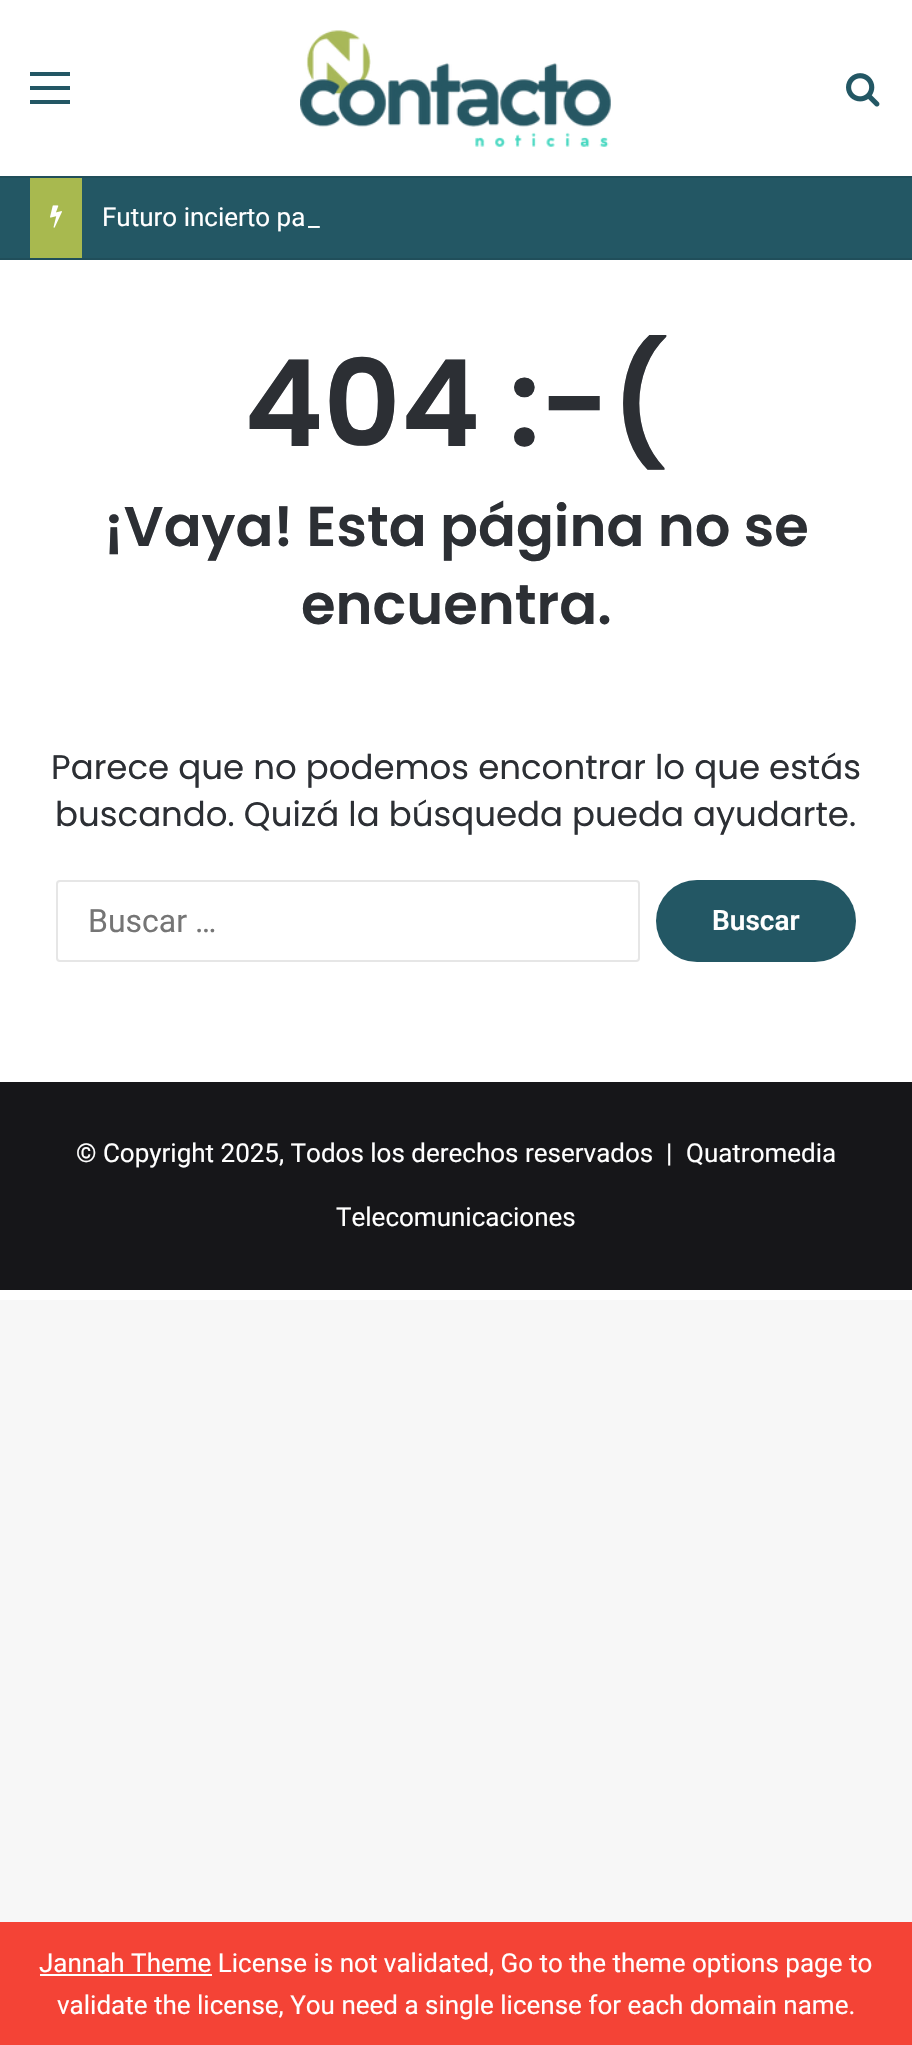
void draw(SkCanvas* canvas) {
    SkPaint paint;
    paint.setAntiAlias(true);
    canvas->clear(0xFFF7F7F7);
    paint.setColor(0xFFFFFFFF);
    canvas->drawRect(SkRect::MakeXYWH(0, 0, 912, 1300), paint);
    paint.setColor(0xFF235764);
    canvas->drawRect(SkRect::MakeXYWH(30, 86, 40, 4), paint);
    canvas->drawRect(SkRect::MakeXYWH(30, 72, 40, 4), paint);
    canvas->drawRect(SkRect::MakeXYWH(30, 100, 40, 4), paint);
    canvas->drawImageRect(SkImages::DeferredFromEncodedData(SkData::MakeFromFileName("img1.png")), SkRect::MakeXYWH(300, 30, 311, 117), SkSamplingOptions());
    canvas->drawImageRect(SkImages::DeferredFromEncodedData(SkData::MakeFromFileName("img2.png")), SkRect::MakeXYWH(846, 73, 34, 34), SkSamplingOptions());
    canvas->drawRect(SkRect::MakeXYWH(0, 178, 912, 80), paint);
    paint.setColor(0xFF204E5A);
    canvas->drawRect(SkRect::MakeXYWH(0, 176, 912, 2), paint);
    canvas->drawRect(SkRect::MakeXYWH(0, 258, 912, 2), paint);
    paint.setColor(0xFFA8B94F);
    canvas->drawRect(SkRect::MakeXYWH(30, 178, 52, 80), paint);
    canvas->drawImageRect(SkImages::DeferredFromEncodedData(SkData::MakeFromFileName("img3.png")), SkRect::MakeXYWH(50, 205, 12, 23), SkSamplingOptions());
    SkFont font1(fontMgr->matchFamilyStyle("Roboto", SkFontStyle::Normal()), 26);
    font1.setSubpixel(true);
    paint.setColor(0xFFFFFFFF);
    canvas->drawString("Futuro incierto pa", 102, 226, font1, paint);
    canvas->drawString("_", 308, 226, font1, paint);
    SkFont font2(fontMgr->matchFamilyStyle("Poppins", SkFontStyle(600, SkFontStyle::kNormal_Width, SkFontStyle::kUpright_Slant)), 120);
    font2.setSubpixel(true);
    paint.setColor(0xFF2C2F34);
    canvas->drawString("404 :-(", 244, 446, font2, paint);
    SkFont font3(fontMgr->matchFamilyStyle("Poppins", SkFontStyle(600, SkFontStyle::kNormal_Width, SkFontStyle::kUpright_Slant)), 56);
    font3.setSubpixel(true);
    canvas->drawString("¡Vaya! Esta página no se", 104, 546, font3, paint);
    canvas->drawString("encuentra.", 301, 624, font3, paint);
    SkFont font4(fontMgr->matchFamilyStyle("Poppins", SkFontStyle::Normal()), 34);
    font4.setSubpixel(true);
    canvas->drawString("Parece que no podemos encontrar lo que estás", 51, 779, font4, paint);
    canvas->drawString("buscando. Quizá la búsqueda pueda ayudarte.", 55, 826, font4, paint);
    paint.setStyle(SkPaint::kStroke_Style);
    paint.setStrokeWidth(2);
    paint.setColor(0xFFE6E6E6);
    canvas->drawRoundRect(SkRect::MakeXYWH(57, 881, 582, 80), 3, 3, paint);
    SkFont font5(fontMgr->matchFamilyStyle("Roboto", SkFontStyle::Normal()), 32);
    font5.setSubpixel(true);
    paint.setStyle(SkPaint::kFill_Style);
    paint.setColor(0xFF757575);
    canvas->drawString("Buscar …", 88, 932, font5, paint);
    paint.setColor(0xFF235764);
    canvas->drawRoundRect(SkRect::MakeXYWH(656, 880, 200, 82), 41, 41, paint);
    SkFont font6(fontMgr->matchFamilyStyle("Roboto", SkFontStyle(600, SkFontStyle::kNormal_Width, SkFontStyle::kUpright_Slant)), 28);
    font6.setSubpixel(true);
    paint.setColor(0xFFFFFFFF);
    canvas->drawString("Buscar", 712, 930, font6, paint);
    paint.setColor(0xFF161619);
    canvas->drawRect(SkRect::MakeXYWH(0, 1082, 912, 208), paint);
    paint.setColor(0xFFFFFFFF);
    canvas->drawString("© Copyright 2025, Todos los derechos reservados  |", 76, 1162, font1, paint);
    canvas->drawString("Quatromedia", 686, 1162, font1, paint);
    canvas->drawString("Telecomunicaciones", 336, 1226, font1, paint);
    paint.setColor(0xFFF44336);
    canvas->drawRect(SkRect::MakeXYWH(0, 1922, 912, 123), paint);
    paint.setColor(0xFFFFFFFF);
    canvas->drawRect(SkRect::MakeXYWH(40, 1974, 172, 2), paint);
    canvas->drawString("Jannah Theme License is not validated, Go to the theme options page to", 39, 1972, font1, paint);
    canvas->drawString("validate the license, You need a single license for each domain name.", 57, 2014, font1, paint);
}
